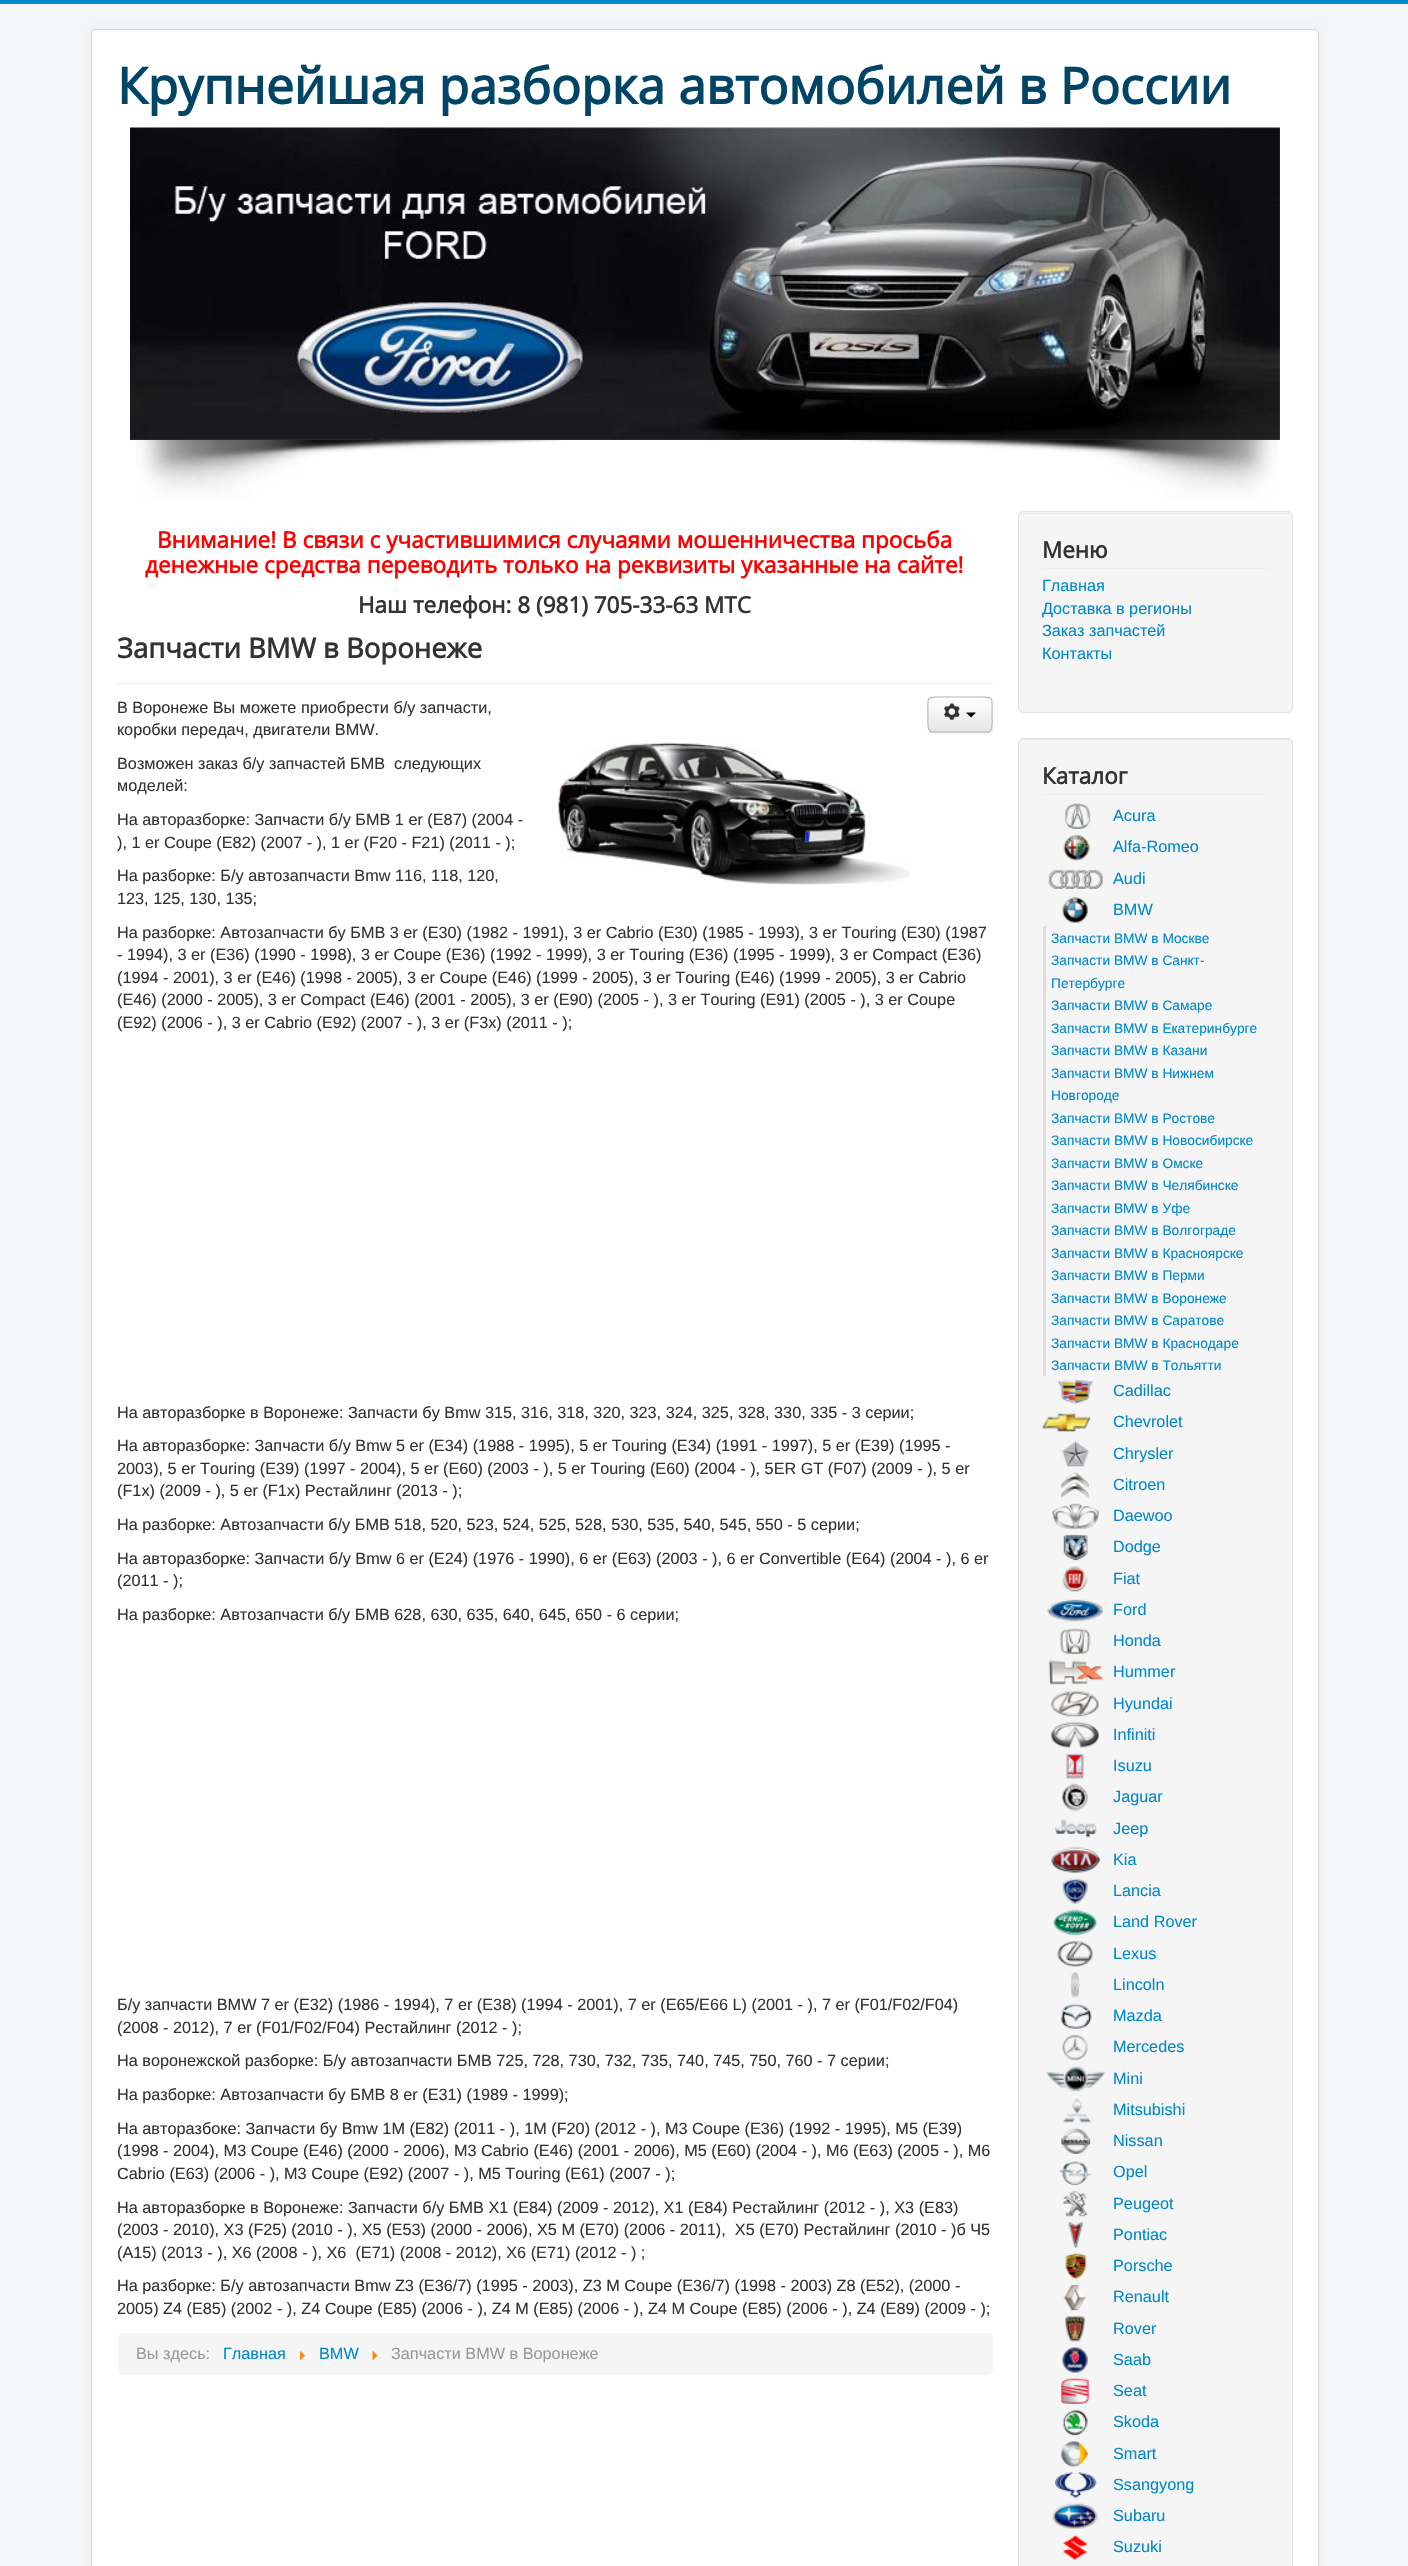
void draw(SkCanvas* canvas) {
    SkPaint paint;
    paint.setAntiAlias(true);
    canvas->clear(0xFFF4F6F7);
    paint.setColor(0xFF0088CC);
    canvas->drawRect(SkRect::MakeXYWH(0, 0, 1408, 4), paint);
    paint.setColor(0x0D000000);
    paint.setMaskFilter(SkMaskFilter::MakeBlur(kNormal_SkBlurStyle, 4));
    canvas->drawRoundRect(SkRect::MakeXYWH(91, 29, 1228, 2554), 5, 5, paint);
    paint.setMaskFilter(nullptr);
    paint.setColor(0xFFFFFFFF);
    canvas->drawRoundRect(SkRect::MakeXYWH(91, 29, 1228, 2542), 5, 5, paint);
    paint.setStyle(SkPaint::kStroke_Style);
    paint.setStrokeWidth(1);
    paint.setColor(0x26000000);
    canvas->drawRoundRect(SkRect::MakeXYWH(91.5f, 29.5f, 1227, 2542), 4.5f, 4.5f, paint);
    SkFont font1(fontMgr->matchFamilyStyle("Open Sans", SkFontStyle::Bold()), 50);
    font1.setSubpixel(true);
    paint.setStyle(SkPaint::kFill_Style);
    paint.setColor(0xFF004466);
    canvas->drawString("Крупнейшая разборка автомобилей в России", 117, 104, font1, paint);
    canvas->drawImageRect(SkImages::DeferredFromEncodedData(SkData::MakeFromFileName("img1.png")), SkRect::MakeXYWH(130, 127, 1150, 313), SkSamplingOptions());
    canvas->drawImageRect(SkImages::DeferredFromEncodedData(SkData::MakeFromFileName("img2.png")), SkRect::MakeXYWH(136, 440, 426, 58), SkSamplingOptions());
    canvas->drawImageRect(SkImages::DeferredFromEncodedData(SkData::MakeFromFileName("img3.png")), SkRect::MakeXYWH(851, 440, 427, 58), SkSamplingOptions());
    SkFont font2(fontMgr->matchFamilyStyle("Open Sans", SkFontStyle::Bold()), 22.5f);
    font2.setSubpixel(true);
    paint.setColor(0xFFFF0000);
    canvas->drawString("Внимание! В связи с участившимися случаями мошенничества просьба", 157, 548, font2, paint);
    canvas->drawString("денежные средства переводить только на реквизиты указанные на сайте!", 145, 573, font2, paint);
    paint.setColor(0xFF333333);
    canvas->drawString("Наш телефон: 8 (981) 705-33-63 МТС", 358, 613, font2, paint);
    paint.setColor(0xFFEEEEEE);
    canvas->drawRect(SkRect::MakeXYWH(118, 683, 875, 1), paint);
    SkFont font3(fontMgr->matchFamilyStyle("Open Sans", SkFontStyle::Bold()), 27.5f);
    font3.setSubpixel(true);
    paint.setColor(0xFF333333);
    canvas->drawString("Запчасти BMW в Воронеже", 117, 658, font3, paint);
    paint.setColor(0x0D000000);
    paint.setMaskFilter(SkMaskFilter::MakeBlur(kNormal_SkBlurStyle, 1));
    canvas->drawRoundRect(SkRect::MakeXYWH(928, 698, 65, 36), 5, 5, paint);
    paint.setMaskFilter(nullptr);
    paint.setColor(0xFFF5F5F5);
    canvas->drawRoundRect(SkRect::MakeXYWH(928, 696, 65, 37), 5, 5, paint);
    canvas->save();
    canvas->clipPath(SkPathBuilder().moveTo(933, 696).lineTo(988, 696).cubicTo(991, 696, 993, 698, 993, 701).lineTo(993, 728).cubicTo(993, 731, 991, 733, 988, 733).lineTo(933, 733).cubicTo(930, 733, 928, 731, 928, 728).lineTo(928, 701).cubicTo(928, 698, 930, 696, 933, 696).close().detach(), true);
    {
        const SkColor colors[] = {0xFFFFFFFF, 0xFFE6E6E6};
        const float stops[] = {0, 1};
        const SkPoint ends[] = {{960, 698}, {960, 731}};
        paint.setShader(SkGradientShader::MakeLinear(ends, colors, stops, 2, SkTileMode::kClamp));
        paint.setAlpha(255);
    }
    canvas->drawRect(SkRect::MakeXYWH(928, 698, 65, 33), paint);
    canvas->restore();
    paint.setStyle(SkPaint::kStroke_Style);
    paint.setStrokeWidth(1.2f);
    paint.setShader(nullptr);
    paint.setColor(0xFFA2A2A2);
    canvas->drawPath(SkPathBuilder().moveTo(990.5f, 730.5f).cubicTo(990, 731.5f, 988.5f, 732, 987.5f, 732).lineTo(932.5f, 732).cubicTo(931.5f, 732, 930, 731.5f, 929.5f, 730.5f).detach(), paint);
    paint.setColor(0xFFBBBBBB);
    canvas->drawPath(SkPathBuilder().moveTo(929.5f, 730.5f).cubicTo(927, 728, 928, 717.5f, 928, 714.5f).cubicTo(928, 697, 925, 697, 941.5f, 697).lineTo(978.5f, 697).cubicTo(995, 697, 992, 697, 992, 714.5f).cubicTo(992, 717.5f, 993, 728, 990.5f, 730.5f).detach(), paint);
    canvas->drawImageRect(SkImages::DeferredFromEncodedData(SkData::MakeFromFileName("img4.png")), SkRect::MakeXYWH(944, 703, 16, 17), SkSamplingOptions());
    paint.setStyle(SkPaint::kFill_Style);
    paint.setColor(0xFF000000);
    canvas->drawPath(SkPathBuilder().moveTo(966, 712.5f).lineTo(976, 712.5f).lineTo(971, 717.5f).close().detach(), paint);
    SkFont font4(fontMgr->matchFamilyStyle("Liberation Sans", SkFontStyle::Normal()), 16.25f);
    font4.setSubpixel(true);
    paint.setColor(0xFF333333);
    canvas->drawString("В Воронеже Вы можете приобрести б/у запчасти,", 117, 713, font4, paint);
    canvas->drawString("коробки передач, двигатели BMW.", 117, 735, font4, paint);
    canvas->drawImageRect(SkImages::DeferredFromEncodedData(SkData::MakeFromFileName("img5.png")), SkRect::MakeXYWH(557, 742, 353, 143), SkSamplingOptions());
    canvas->drawString("Возможен заказ б/у запчастей БМВ  следующих", 117, 769, font4, paint);
    canvas->drawString("моделей:", 117, 791, font4, paint);
    canvas->drawString("На авторазборке: Запчасти б/у БМВ 1 er (E87) (2004 -", 117, 825, font4, paint);
    canvas->drawString("), 1 er Coupe (E82) (2007 - ), 1 er (F20 - F21) (2011 - );", 117, 848, font4, paint);
    canvas->drawString("На разборке: Б/у автозапчасти Bmw 116, 118, 120,", 117, 881, font4, paint);
    canvas->drawString("123, 125, 130, 135;", 117, 904, font4, paint);
    canvas->drawString("На разборке: Автозапчасти бу БМВ 3 er (E30) (1982 - 1991), 3 er Cabrio (E30) (1985 - 1993), 3 er Touring (E30) (1987", 117, 938, font4, paint);
    canvas->drawString("- 1994), 3 er (E36) (1990 - 1998), 3 er Coupe (E36) (1992 - 1999), 3 er Touring (E36) (1995 - 1999), 3 er Compact (E36)", 117, 960, font4, paint);
    canvas->drawString("(1994 - 2001), 3 er (E46) (1998 - 2005), 3 er Coupe (E46) (1999 - 2005), 3 er Touring (E46) (1999 - 2005), 3 er Cabrio", 117, 983, font4, paint);
    canvas->drawString("(E46) (2000 - 2005), 3 er Compact (E46) (2001 - 2005), 3 er (E90) (2005 - ), 3 er Touring (E91) (2005 - ), 3 er Coupe", 117, 1005, font4, paint);
    canvas->drawString("(E92) (2006 - ), 3 er Cabrio (E92) (2007 - ), 3 er (F3x) (2011 - );", 117, 1028, font4, paint);
    canvas->drawString("На авторазборке в Воронеже: Запчасти бу Bmw 315, 316, 318, 320, 323, 324, 325, 328, 330, 335 - 3 серии;", 117, 1418, font4, paint);
    canvas->drawString("На авторазборке: Запчасти б/у Bmw 5 er (E34) (1988 - 1995), 5 er Touring (E34) (1991 - 1997), 5 er (E39) (1995 -", 117, 1451, font4, paint);
    canvas->drawString("2003), 5 er Touring (E39) (1997 - 2004), 5 er (E60) (2003 - ), 5 er Touring (E60) (2004 - ), 5ER GT (F07) (2009 - ), 5 er", 117, 1474, font4, paint);
    canvas->drawString("(F1x) (2009 - ), 5 er (F1x) Рестайлинг (2013 - );", 117, 1496, font4, paint);
    canvas->drawString("На разборке: Автозапчасти б/у БМВ 518, 520, 523, 524, 525, 528, 530, 535, 540, 545, 550 - 5 серии;", 117, 1530, font4, paint);
    canvas->drawString("На авторазборке: Запчасти б/у Bmw 6 er (E24) (1976 - 1990), 6 er (E63) (2003 - ), 6 er Convertible (E64) (2004 - ), 6 er", 117, 1564, font4, paint);
    canvas->drawString("(2011 - );", 117, 1586, font4, paint);
    canvas->drawString("На разборке: Автозапчасти б/у БМВ 628, 630, 635, 640, 645, 650 - 6 серии;", 117, 1620, font4, paint);
    canvas->drawString("Б/у запчасти BMW 7 er (E32) (1986 - 1994), 7 er (E38) (1994 - 2001), 7 er (E65/E66 L) (2001 - ), 7 er (F01/F02/F04)", 117, 2010, font4, paint);
    canvas->drawString("(2008 - 2012), 7 er (F01/F02/F04) Рестайлинг (2012 - );", 117, 2033, font4, paint);
    canvas->drawString("На воронежской разборке: Б/у автозапчасти БМВ 725, 728, 730, 732, 735, 740, 745, 750, 760 - 7 серии;", 117, 2066, font4, paint);
    canvas->drawString("На разборке: Автозапчасти бу БМВ 8 er (E31) (1989 - 1999);", 117, 2100, font4, paint);
    canvas->drawString("На авторазбоке: Запчасти бу Bmw 1M (E82) (2011 - ), 1M (F20) (2012 - ), M3 Coupe (E36) (1992 - 1995), M5 (E39)", 117, 2134, font4, paint);
    canvas->drawString("(1998 - 2004), M3 Coupe (E46) (2000 - 2006), M3 Cabrio (E46) (2001 - 2006), M5 (E60) (2004 - ), M6 (E63) (2005 - ), M6", 117, 2156, font4, paint);
    canvas->drawString("Cabrio (E63) (2006 - ), M3 Coupe (E92) (2007 - ), M5 Touring (E61) (2007 - );", 117, 2179, font4, paint);
    canvas->drawString("На авторазборке в Воронеже: Запчасти б/у БМВ X1 (E84) (2009 - 2012), X1 (E84) Рестайлинг (2012 - ), X3 (E83)", 117, 2213, font4, paint);
    canvas->drawString("(2003 - 2010), X3 (F25) (2010 - ), X5 (E53) (2000 - 2006), X5 M (E70) (2006 - 2011),  X5 (E70) Рестайлинг (2010 - )б Ч5", 117, 2235, font4, paint);
    canvas->drawString("(А15) (2013 - ), X6 (2008 - ), X6  (E71) (2008 - 2012), X6 (E71) (2012 - ) ;", 117, 2258, font4, paint);
    canvas->drawString("На разборке: Б/у автозапчасти Bmw Z3 (E36/7) (1995 - 2003), Z3 M Coupe (E36/7) (1998 - 2003) Z8 (E52), (2000 -", 117, 2291, font4, paint);
    canvas->drawString("2005) Z4 (E85) (2002 - ), Z4 Coupe (E85) (2006 - ), Z4 M (E85) (2006 - ), Z4 M Coupe (E85) (2006 - ), Z4 (E89) (2009 - );", 117, 2314, font4, paint);
    paint.setColor(0xFFF5F5F5);
    canvas->drawRoundRect(SkRect::MakeXYWH(118, 2333, 875, 42), 5, 5, paint);
    paint.setColor(0xFF999999);
    canvas->drawString("Вы здесь:", 136, 2359, font4, paint);
    paint.setColor(0xFF0088CC);
    canvas->drawString("Главная", 223, 2359, font4, paint);
    canvas->drawImageRect(SkImages::DeferredFromEncodedData(SkData::MakeFromFileName("img6.png")), SkRect::MakeXYWH(299, 2351, 7, 9), SkSamplingOptions());
    canvas->drawString("BMW", 319, 2359, font4, paint);
    canvas->drawImageRect(SkImages::DeferredFromEncodedData(SkData::MakeFromFileName("img7.png")), SkRect::MakeXYWH(372, 2351, 6, 9), SkSamplingOptions());
    paint.setColor(0xFF999999);
    canvas->drawString("Запчасти BMW в Воронеже", 391, 2359, font4, paint);
    paint.setColor(0xFFF5F5F5);
    canvas->drawRoundRect(SkRect::MakeXYWH(1018, 511, 275, 202), 5, 5, paint);
    paint.setColor(0xFFE9E9E9);
    canvas->drawPath(SkPathBuilder().moveTo(1022, 514).lineTo(1288, 514).cubicTo(1290, 514, 1291, 515, 1291, 518).cubicTo(1291, 515, 1290, 513, 1287, 513).lineTo(1023, 513).cubicTo(1020, 513, 1019, 515, 1019, 518).cubicTo(1019, 515, 1020, 514, 1022, 514).close().detach(), paint);
    paint.setStyle(SkPaint::kStroke_Style);
    paint.setStrokeWidth(1);
    paint.setColor(0xFFE3E3E3);
    canvas->drawRoundRect(SkRect::MakeXYWH(1018.5f, 511.5f, 274, 201), 4.5f, 4.5f, paint);
    paint.setStyle(SkPaint::kFill_Style);
    paint.setColor(0xFFEEEEEE);
    canvas->drawRect(SkRect::MakeXYWH(1043, 568, 225, 1), paint);
    paint.setColor(0xFF333333);
    canvas->drawString("Меню", 1042, 558, font2, paint);
    paint.setColor(0xFF0088CC);
    canvas->drawString("Главная", 1042, 591, font4, paint);
    canvas->drawString("Доставка в регионы", 1042, 614, font4, paint);
    canvas->drawString("Заказ запчастей", 1042, 636, font4, paint);
    canvas->drawString("Контакты", 1042, 659, font4, paint);
    paint.setColor(0xFFF5F5F5);
    canvas->drawRoundRect(SkRect::MakeXYWH(1018, 738, 275, 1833), 5, 5, paint);
    paint.setColor(0xFFE9E9E9);
    canvas->drawPath(SkPathBuilder().moveTo(1022, 740).lineTo(1288, 740).cubicTo(1290, 740, 1291, 742, 1291, 744).cubicTo(1291, 741, 1290, 739, 1287, 739).lineTo(1023, 739).cubicTo(1020, 739, 1019, 741, 1019, 744).cubicTo(1019, 742, 1020, 740, 1022, 740).close().detach(), paint);
    paint.setStyle(SkPaint::kStroke_Style);
    paint.setColor(0xFFE3E3E3);
    canvas->drawRoundRect(SkRect::MakeXYWH(1018.5f, 738.5f, 274, 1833), 4.5f, 4.5f, paint);
    paint.setStyle(SkPaint::kFill_Style);
    paint.setColor(0xFFEEEEEE);
    canvas->drawRect(SkRect::MakeXYWH(1043, 794, 225, 1), paint);
    paint.setColor(0xFF333333);
    canvas->drawString("Каталог", 1042, 784, font2, paint);
    canvas->drawImageRect(SkImages::DeferredFromEncodedData(SkData::MakeFromFileName("img8.png")), SkRect::MakeXYWH(1064, 803, 27, 26), SkSamplingOptions());
    paint.setColor(0xFF0088CC);
    canvas->drawString("Acura", 1113, 821, font4, paint);
    canvas->drawImageRect(SkImages::DeferredFromEncodedData(SkData::MakeFromFileName("img9.png")), SkRect::MakeXYWH(1063, 834, 28, 27), SkSamplingOptions());
    canvas->drawString("Alfa-Romeo", 1113, 852, font4, paint);
    canvas->drawImageRect(SkImages::DeferredFromEncodedData(SkData::MakeFromFileName("img10.png")), SkRect::MakeXYWH(1048, 869, 55, 20), SkSamplingOptions());
    canvas->drawString("Audi", 1113, 884, font4, paint);
    canvas->drawImageRect(SkImages::DeferredFromEncodedData(SkData::MakeFromFileName("img11.png")), SkRect::MakeXYWH(1062, 897, 26, 26), SkSamplingOptions());
    canvas->drawString("BMW", 1113, 915, font4, paint);
    paint.setColor(0xFFDDDDDD);
    canvas->drawRect(SkRect::MakeXYWH(1043, 926, 3, 450), paint);
    SkFont font5(fontMgr->matchFamilyStyle("Liberation Sans", SkFontStyle::Normal()), 13.75f);
    font5.setSubpixel(true);
    paint.setColor(0xFF0088CC);
    canvas->drawString("Запчасти BMW в Москве", 1051, 943, font5, paint);
    canvas->drawString("Запчасти BMW в Санкт-", 1051, 965, font5, paint);
    canvas->drawString("Петербурге", 1051, 988, font5, paint);
    canvas->drawString("Запчасти BMW в Самаре", 1051, 1010, font5, paint);
    canvas->drawString("Запчасти BMW в Екатеринбурге", 1051, 1033, font5, paint);
    canvas->drawString("Запчасти BMW в Казани", 1051, 1055, font5, paint);
    canvas->drawString("Запчасти BMW в Нижнем", 1051, 1078, font5, paint);
    canvas->drawString("Новгороде", 1051, 1100, font5, paint);
    canvas->drawString("Запчасти BMW в Ростове", 1051, 1123, font5, paint);
    canvas->drawString("Запчасти BMW в Новосибирске", 1051, 1145, font5, paint);
    canvas->drawString("Запчасти BMW в Омске", 1051, 1168, font5, paint);
    canvas->drawString("Запчасти BMW в Челябинске", 1051, 1190, font5, paint);
    canvas->drawString("Запчасти BMW в Уфе", 1051, 1213, font5, paint);
    canvas->drawString("Запчасти BMW в Волгограде", 1051, 1235, font5, paint);
    canvas->drawString("Запчасти BMW в Красноярске", 1051, 1258, font5, paint);
    canvas->drawString("Запчасти BMW в Перми", 1051, 1280, font5, paint);
    canvas->drawString("Запчасти BMW в Воронеже", 1051, 1303, font5, paint);
    canvas->drawString("Запчасти BMW в Саратове", 1051, 1325, font5, paint);
    canvas->drawString("Запчасти BMW в Краснодаре", 1051, 1348, font5, paint);
    canvas->drawString("Запчасти BMW в Тольятти", 1051, 1370, font5, paint);
    canvas->drawImageRect(SkImages::DeferredFromEncodedData(SkData::MakeFromFileName("img12.png")), SkRect::MakeXYWH(1057, 1379, 36, 25), SkSamplingOptions());
    canvas->drawString("Cadillac", 1113, 1396, font4, paint);
    canvas->drawImageRect(SkImages::DeferredFromEncodedData(SkData::MakeFromFileName("img13.png")), SkRect::MakeXYWH(1042, 1413, 49, 19), SkSamplingOptions());
    canvas->drawString("Chevrolet", 1113, 1427, font4, paint);
    canvas->drawImageRect(SkImages::DeferredFromEncodedData(SkData::MakeFromFileName("img14.png")), SkRect::MakeXYWH(1061, 1441, 28, 26), SkSamplingOptions());
    canvas->drawString("Chrysler", 1113, 1459, font4, paint);
    canvas->drawImageRect(SkImages::DeferredFromEncodedData(SkData::MakeFromFileName("img15.png")), SkRect::MakeXYWH(1061, 1472, 28, 26), SkSamplingOptions());
    canvas->drawString("Citroen", 1113, 1490, font4, paint);
    canvas->drawImageRect(SkImages::DeferredFromEncodedData(SkData::MakeFromFileName("img16.png")), SkRect::MakeXYWH(1052, 1503, 47, 26), SkSamplingOptions());
    canvas->drawString("Daewoo", 1113, 1521, font4, paint);
    canvas->drawImageRect(SkImages::DeferredFromEncodedData(SkData::MakeFromFileName("img17.png")), SkRect::MakeXYWH(1063, 1534, 25, 27), SkSamplingOptions());
    canvas->drawString("Dodge", 1113, 1552, font4, paint);
    canvas->drawImageRect(SkImages::DeferredFromEncodedData(SkData::MakeFromFileName("img18.png")), SkRect::MakeXYWH(1062, 1566, 26, 26), SkSamplingOptions());
    canvas->drawString("Fiat", 1113, 1584, font4, paint);
    canvas->drawImageRect(SkImages::DeferredFromEncodedData(SkData::MakeFromFileName("img19.png")), SkRect::MakeXYWH(1047, 1599, 56, 23), SkSamplingOptions());
    canvas->drawString("Ford", 1113, 1615, font4, paint);
    canvas->drawImageRect(SkImages::DeferredFromEncodedData(SkData::MakeFromFileName("img20.png")), SkRect::MakeXYWH(1060, 1628, 31, 26), SkSamplingOptions());
    canvas->drawString("Honda", 1113, 1646, font4, paint);
    canvas->drawImageRect(SkImages::DeferredFromEncodedData(SkData::MakeFromFileName("img21.png")), SkRect::MakeXYWH(1048, 1660, 55, 25), SkSamplingOptions());
    canvas->drawString("Hummer", 1113, 1677, font4, paint);
    canvas->drawImageRect(SkImages::DeferredFromEncodedData(SkData::MakeFromFileName("img22.png")), SkRect::MakeXYWH(1051, 1691, 48, 26), SkSamplingOptions());
    canvas->drawString("Hyundai", 1113, 1709, font4, paint);
    canvas->drawImageRect(SkImages::DeferredFromEncodedData(SkData::MakeFromFileName("img23.png")), SkRect::MakeXYWH(1051, 1722, 48, 26), SkSamplingOptions());
    canvas->drawString("Infiniti", 1113, 1740, font4, paint);
    canvas->drawImageRect(SkImages::DeferredFromEncodedData(SkData::MakeFromFileName("img24.png")), SkRect::MakeXYWH(1066, 1753, 18, 26), SkSamplingOptions());
    canvas->drawString("Isuzu", 1113, 1771, font4, paint);
    canvas->drawImageRect(SkImages::DeferredFromEncodedData(SkData::MakeFromFileName("img25.png")), SkRect::MakeXYWH(1062, 1783, 26, 29), SkSamplingOptions());
    canvas->drawString("Jaguar", 1113, 1802, font4, paint);
    canvas->drawImageRect(SkImages::DeferredFromEncodedData(SkData::MakeFromFileName("img26.png")), SkRect::MakeXYWH(1055, 1819, 42, 19), SkSamplingOptions());
    canvas->drawString("Jeep", 1113, 1834, font4, paint);
    canvas->drawImageRect(SkImages::DeferredFromEncodedData(SkData::MakeFromFileName("img27.png")), SkRect::MakeXYWH(1051, 1847, 50, 26), SkSamplingOptions());
    canvas->drawString("Kia", 1113, 1865, font4, paint);
    canvas->drawImageRect(SkImages::DeferredFromEncodedData(SkData::MakeFromFileName("img28.png")), SkRect::MakeXYWH(1062, 1878, 26, 26), SkSamplingOptions());
    canvas->drawString("Lancia", 1113, 1896, font4, paint);
    canvas->drawImageRect(SkImages::DeferredFromEncodedData(SkData::MakeFromFileName("img29.png")), SkRect::MakeXYWH(1053, 1909, 44, 27), SkSamplingOptions());
    canvas->drawString("Land Rover", 1113, 1927, font4, paint);
    canvas->drawImageRect(SkImages::DeferredFromEncodedData(SkData::MakeFromFileName("img30.png")), SkRect::MakeXYWH(1057, 1941, 36, 26), SkSamplingOptions());
    canvas->drawString("Lexus", 1113, 1959, font4, paint);
    canvas->drawImageRect(SkImages::DeferredFromEncodedData(SkData::MakeFromFileName("img31.png")), SkRect::MakeXYWH(1070, 1972, 10, 26), SkSamplingOptions());
    canvas->drawString("Lincoln", 1113, 1990, font4, paint);
    canvas->drawImageRect(SkImages::DeferredFromEncodedData(SkData::MakeFromFileName("img32.png")), SkRect::MakeXYWH(1060, 2003, 32, 26), SkSamplingOptions());
    canvas->drawString("Mazda", 1113, 2021, font4, paint);
    canvas->drawImageRect(SkImages::DeferredFromEncodedData(SkData::MakeFromFileName("img33.png")), SkRect::MakeXYWH(1062, 2034, 26, 27), SkSamplingOptions());
    canvas->drawString("Mercedes", 1113, 2052, font4, paint);
    canvas->drawImageRect(SkImages::DeferredFromEncodedData(SkData::MakeFromFileName("img34.png")), SkRect::MakeXYWH(1046, 2066, 60, 26), SkSamplingOptions());
    canvas->drawString("Mini", 1113, 2084, font4, paint);
    canvas->drawImageRect(SkImages::DeferredFromEncodedData(SkData::MakeFromFileName("img35.png")), SkRect::MakeXYWH(1062, 2098, 30, 25), SkSamplingOptions());
    canvas->drawString("Mitsubishi", 1113, 2115, font4, paint);
    canvas->drawImageRect(SkImages::DeferredFromEncodedData(SkData::MakeFromFileName("img36.png")), SkRect::MakeXYWH(1061, 2128, 30, 26), SkSamplingOptions());
    canvas->drawString("Nissan", 1113, 2146, font4, paint);
    canvas->drawImageRect(SkImages::DeferredFromEncodedData(SkData::MakeFromFileName("img37.png")), SkRect::MakeXYWH(1059, 2160, 33, 26), SkSamplingOptions());
    canvas->drawString("Opel", 1113, 2177, font4, paint);
    canvas->drawImageRect(SkImages::DeferredFromEncodedData(SkData::MakeFromFileName("img38.png")), SkRect::MakeXYWH(1062, 2191, 26, 26), SkSamplingOptions());
    canvas->drawString("Peugeot", 1113, 2209, font4, paint);
    canvas->drawImageRect(SkImages::DeferredFromEncodedData(SkData::MakeFromFileName("img39.png")), SkRect::MakeXYWH(1068, 2222, 15, 26), SkSamplingOptions());
    canvas->drawString("Pontiac", 1113, 2240, font4, paint);
    canvas->drawImageRect(SkImages::DeferredFromEncodedData(SkData::MakeFromFileName("img40.png")), SkRect::MakeXYWH(1064, 2253, 23, 26), SkSamplingOptions());
    canvas->drawString("Porsche", 1113, 2271, font4, paint);
    canvas->drawImageRect(SkImages::DeferredFromEncodedData(SkData::MakeFromFileName("img41.png")), SkRect::MakeXYWH(1063, 2284, 24, 27), SkSamplingOptions());
    canvas->drawString("Renault", 1113, 2302, font4, paint);
    canvas->drawImageRect(SkImages::DeferredFromEncodedData(SkData::MakeFromFileName("img42.png")), SkRect::MakeXYWH(1064, 2316, 22, 26), SkSamplingOptions());
    canvas->drawString("Rover", 1113, 2334, font4, paint);
    canvas->drawImageRect(SkImages::DeferredFromEncodedData(SkData::MakeFromFileName("img43.png")), SkRect::MakeXYWH(1062, 2347, 26, 26), SkSamplingOptions());
    canvas->drawString("Saab", 1113, 2365, font4, paint);
    canvas->drawImageRect(SkImages::DeferredFromEncodedData(SkData::MakeFromFileName("img44.png")), SkRect::MakeXYWH(1061, 2378, 28, 26), SkSamplingOptions());
    canvas->drawString("Seat", 1113, 2396, font4, paint);
    canvas->drawImageRect(SkImages::DeferredFromEncodedData(SkData::MakeFromFileName("img45.png")), SkRect::MakeXYWH(1062, 2409, 26, 27), SkSamplingOptions());
    canvas->drawString("Skoda", 1113, 2427, font4, paint);
    canvas->drawImageRect(SkImages::DeferredFromEncodedData(SkData::MakeFromFileName("img46.png")), SkRect::MakeXYWH(1061, 2441, 28, 26), SkSamplingOptions());
    canvas->drawString("Smart", 1113, 2459, font4, paint);
    canvas->drawImageRect(SkImages::DeferredFromEncodedData(SkData::MakeFromFileName("img47.png")), SkRect::MakeXYWH(1054, 2472, 43, 26), SkSamplingOptions());
    canvas->drawString("Ssangyong", 1113, 2490, font4, paint);
    canvas->drawImageRect(SkImages::DeferredFromEncodedData(SkData::MakeFromFileName("img48.png")), SkRect::MakeXYWH(1052, 2503, 46, 26), SkSamplingOptions());
    canvas->drawString("Subaru", 1113, 2521, font4, paint);
    canvas->drawImageRect(SkImages::DeferredFromEncodedData(SkData::MakeFromFileName("img49.png")), SkRect::MakeXYWH(1062, 2535, 26, 26), SkSamplingOptions());
    canvas->drawString("Suzuki", 1113, 2552, font4, paint);
}
